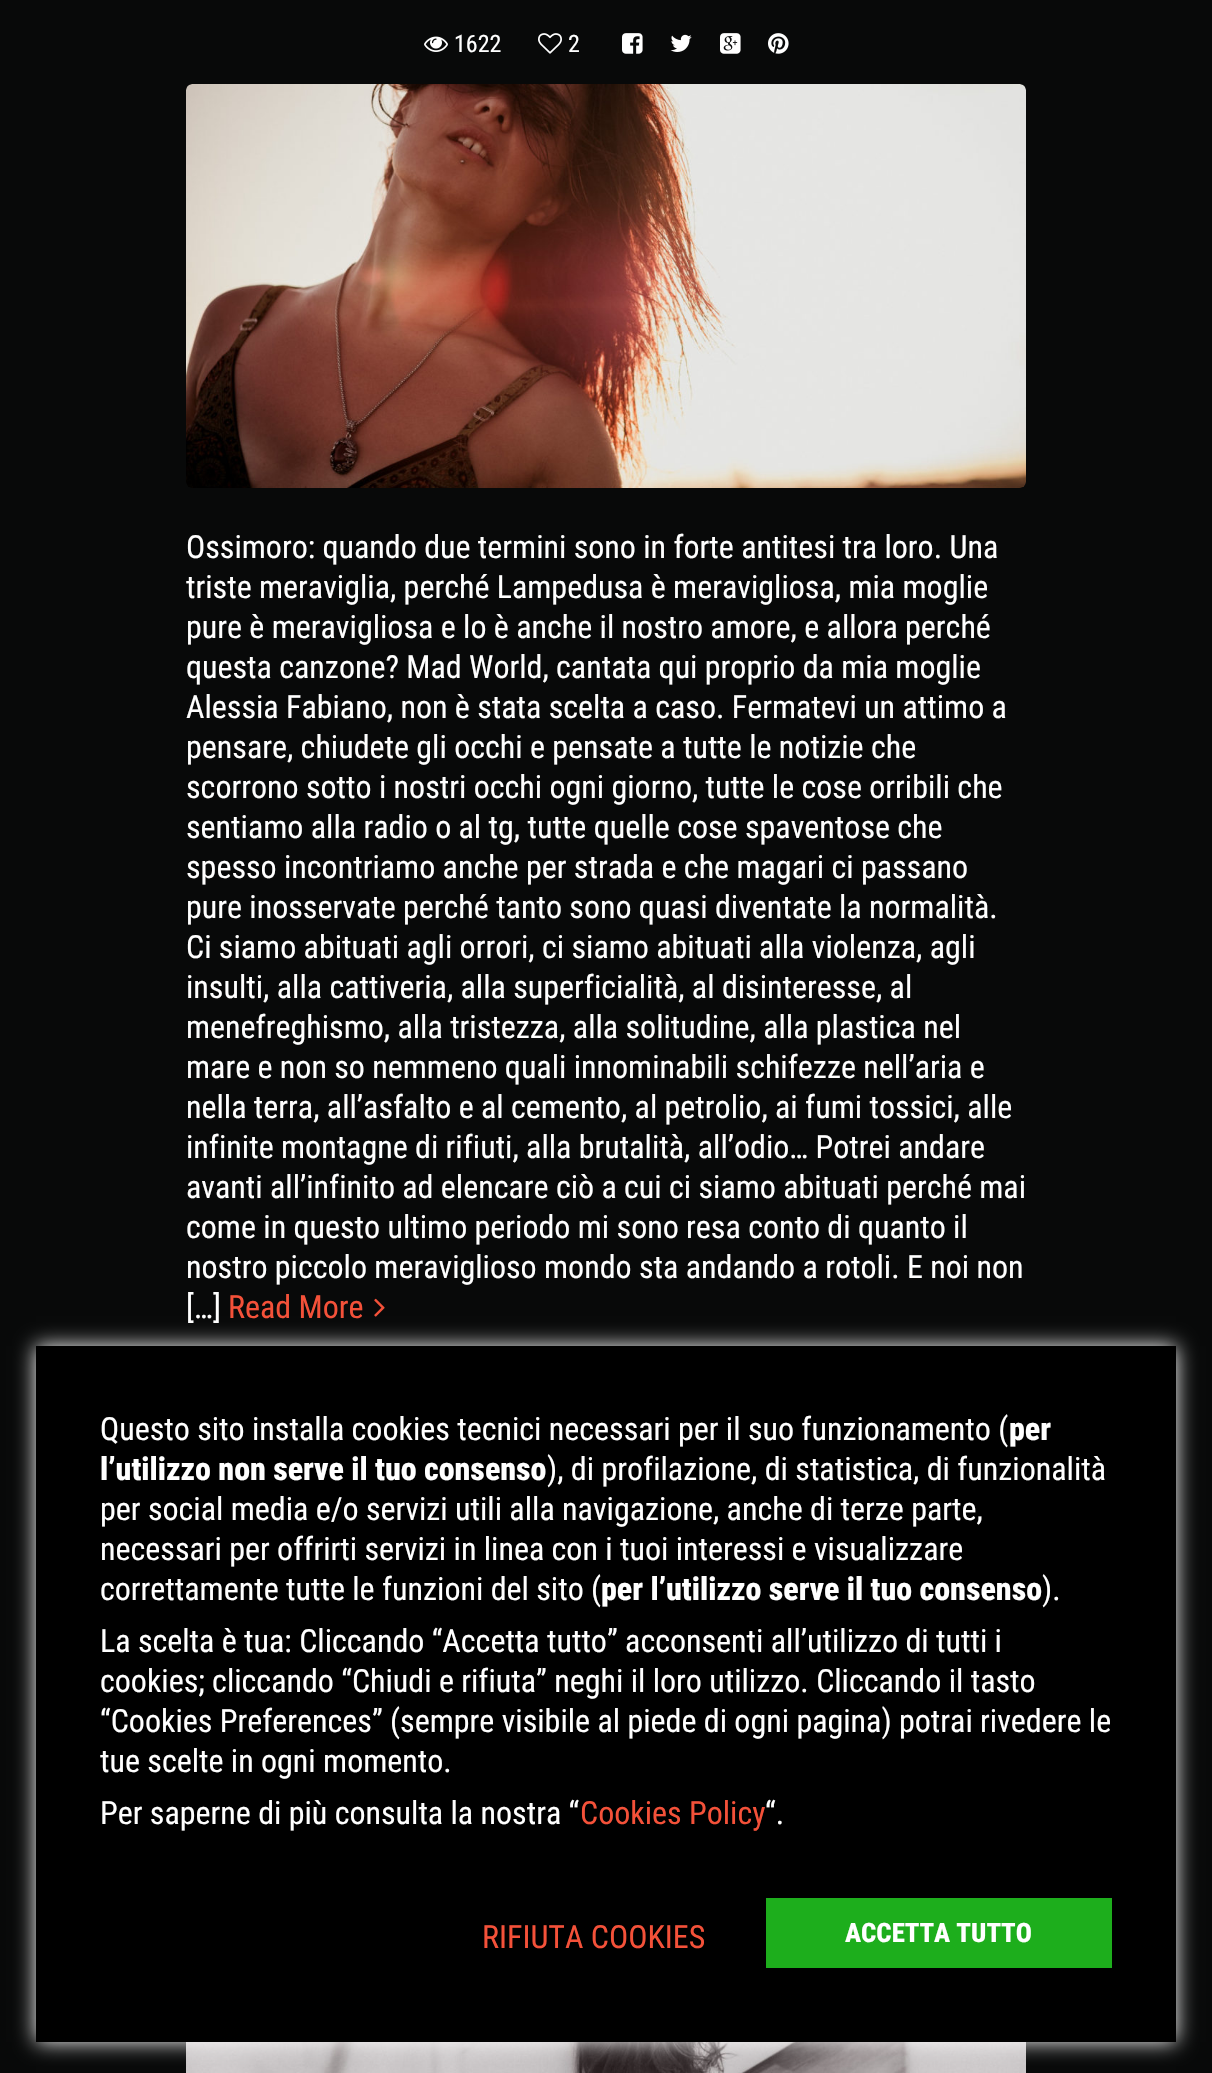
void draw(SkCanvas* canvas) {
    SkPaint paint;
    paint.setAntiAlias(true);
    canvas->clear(0xFF080909);
    canvas->drawImageRect(SkImages::DeferredFromEncodedData(SkData::MakeFromFileName("img1.png")), SkRect::MakeXYWH(424, 36, 24, 16), SkSamplingOptions());
    SkFont font1(fontMgr->matchFamilyStyle("Roboto Condensed", SkFontStyle::Normal()), 24);
    font1.setSubpixel(true);
    paint.setColor(0xFFFFFFFF);
    canvas->drawString("1622", 454, 52, font1, paint);
    canvas->drawImageRect(SkImages::DeferredFromEncodedData(SkData::MakeFromFileName("img2.png")), SkRect::MakeXYWH(538, 33, 24, 21), SkSamplingOptions());
    canvas->drawString("2", 568, 52, font1, paint);
    canvas->drawImageRect(SkImages::DeferredFromEncodedData(SkData::MakeFromFileName("img3.png")), SkRect::MakeXYWH(622, 33, 21, 21), SkSamplingOptions());
    canvas->drawImageRect(SkImages::DeferredFromEncodedData(SkData::MakeFromFileName("img4.png")), SkRect::MakeXYWH(670, 34, 22, 18), SkSamplingOptions());
    canvas->drawImageRect(SkImages::DeferredFromEncodedData(SkData::MakeFromFileName("img5.png")), SkRect::MakeXYWH(720, 33, 21, 21), SkSamplingOptions());
    canvas->drawImageRect(SkImages::DeferredFromEncodedData(SkData::MakeFromFileName("img6.png")), SkRect::MakeXYWH(768, 33, 21, 21), SkSamplingOptions());
    canvas->drawImageRect(SkImages::DeferredFromEncodedData(SkData::MakeFromFileName("img7.png")), SkRect::MakeXYWH(186, 84, 840, 404), SkSamplingOptions());
    SkFont font2(fontMgr->matchFamilyStyle("Roboto Condensed", SkFontStyle::Normal()), 32);
    font2.setSubpixel(true);
    canvas->drawString("Ossimoro: quando due termini sono in forte antitesi tra loro. Una", 186, 558, font2, paint);
    canvas->drawString("triste meraviglia, perché Lampedusa è meravigliosa, mia moglie", 186, 598, font2, paint);
    canvas->drawString("pure è meravigliosa e lo è anche il nostro amore, e allora perché", 186, 638, font2, paint);
    canvas->drawString("questa canzone? Mad World, cantata qui proprio da mia moglie", 186, 678, font2, paint);
    canvas->drawString("Alessia Fabiano, non è stata scelta a caso. Fermatevi un attimo a", 186, 718, font2, paint);
    canvas->drawString("pensare, chiudete gli occhi e pensate a tutte le notizie che", 186, 758, font2, paint);
    canvas->drawString("scorrono sotto i nostri occhi ogni giorno, tutte le cose orribili che", 186, 798, font2, paint);
    canvas->drawString("sentiamo alla radio o al tg, tutte quelle cose spaventose che", 186, 838, font2, paint);
    canvas->drawString("spesso incontriamo anche per strada e che magari ci passano", 186, 878, font2, paint);
    canvas->drawString("pure inosservate perché tanto sono quasi diventate la normalità.", 186, 918, font2, paint);
    canvas->drawString("Ci siamo abituati agli orrori, ci siamo abituati alla violenza, agli", 186, 958, font2, paint);
    canvas->drawString("insulti, alla cattiveria, alla superficialità, al disinteresse, al", 186, 998, font2, paint);
    canvas->drawString("menefreghismo, alla tristezza, alla solitudine, alla plastica nel", 186, 1038, font2, paint);
    canvas->drawString("mare e non so nemmeno quali innominabili schifezze nell’aria e", 186, 1078, font2, paint);
    canvas->drawString("nella terra, all’asfalto e al cemento, al petrolio, ai fumi tossici, alle", 186, 1118, font2, paint);
    canvas->drawString("infinite montagne di rifiuti, alla brutalità, all’odio… Potrei andare", 186, 1158, font2, paint);
    canvas->drawString("avanti all’infinito ad elencare ciò a cui ci siamo abituati perché mai", 186, 1198, font2, paint);
    canvas->drawString("come in questo ultimo periodo mi sono resa conto di quanto il", 186, 1238, font2, paint);
    canvas->drawString("nostro piccolo meraviglioso mondo sta andando a rotoli. E noi non", 186, 1278, font2, paint);
    canvas->drawString("[…]", 186, 1318, font2, paint);
    paint.setColor(0xFFF45139);
    canvas->drawString("Read More", 228, 1318, font2, paint);
    canvas->drawImageRect(SkImages::DeferredFromEncodedData(SkData::MakeFromFileName("img8.png")), SkRect::MakeXYWH(374, 1298, 11, 19), SkSamplingOptions());
    canvas->drawImageRect(SkImages::DeferredFromEncodedData(SkData::MakeFromFileName("img9.png")), SkRect::MakeXYWH(186, 2042, 840, 31), SkSamplingOptions());
    paint.setColor(0xFFFFFFFF);
    paint.setMaskFilter(SkMaskFilter::MakeBlur(kNormal_SkBlurStyle, 10));
    canvas->drawRect(SkRect::MakeXYWH(36, 1346, 1140, 696), paint);
    paint.setMaskFilter(nullptr);
    paint.setColor(0xFF000000);
    canvas->drawRect(SkRect::MakeXYWH(36, 1346, 1140, 696), paint);
    paint.setColor(0xFFFFFFFF);
    canvas->drawString("Questo sito installa cookies tecnici necessari per il suo funzionamento (", 100, 1440, font2, paint);
    SkFont font3(fontMgr->matchFamilyStyle("Roboto Condensed", SkFontStyle(800, SkFontStyle::kNormal_Width, SkFontStyle::kUpright_Slant)), 32);
    font3.setSubpixel(true);
    canvas->drawString("per", 1009, 1440, font3, paint);
    canvas->drawString("l’utilizzo non serve il tuo consenso", 100, 1480, font3, paint);
    canvas->drawString("), di profilazione, di statistica, di funzionalità", 547, 1480, font2, paint);
    canvas->drawString("per social media e/o servizi utili alla navigazione, anche di terze parte,", 100, 1520, font2, paint);
    canvas->drawString("necessari per offrirti servizi in linea con i tuoi interessi e visualizzare", 100, 1560, font2, paint);
    canvas->drawString("correttamente tutte le funzioni del sito (", 100, 1600, font2, paint);
    canvas->drawString("per l’utilizzo serve il tuo consenso", 601, 1600, font3, paint);
    canvas->drawString(").", 1042, 1600, font2, paint);
    canvas->drawString("La scelta è tua: Cliccando “Accetta tutto” acconsenti all’utilizzo di tutti i", 100, 1652, font2, paint);
    canvas->drawString("cookies; cliccando “Chiudi e rifiuta” neghi il loro utilizzo. Cliccando il tasto", 100, 1692, font2, paint);
    canvas->drawString("“Cookies Preferences” (sempre visibile al piede di ogni pagina) potrai rivedere le", 100, 1732, font2, paint);
    canvas->drawString("tue scelte in ogni momento.", 100, 1772, font2, paint);
    canvas->drawString("Per saperne di più consulta la nostra “", 100, 1824, font2, paint);
    paint.setColor(0xFFF45139);
    canvas->drawString("Cookies Policy", 580, 1824, font2, paint);
    paint.setColor(0xFFFFFFFF);
    canvas->drawString("“.", 765, 1824, font2, paint);
    paint.setColor(0xFFF45139);
    canvas->drawString("RIFIUTA COOKIES", 482, 1948, font2, paint);
    paint.setColor(0xFF1DAE1C);
    canvas->drawRect(SkRect::MakeXYWH(766, 1898, 346, 70), paint);
    SkFont font4(fontMgr->matchFamilyStyle("Roboto Condensed", SkFontStyle(800, SkFontStyle::kNormal_Width, SkFontStyle::kUpright_Slant)), 26.75f);
    font4.setSubpixel(true);
    paint.setColor(0xFFFFFFFF);
    canvas->drawString("ACCETTA TUTTO", 845, 1942, font4, paint);
}
